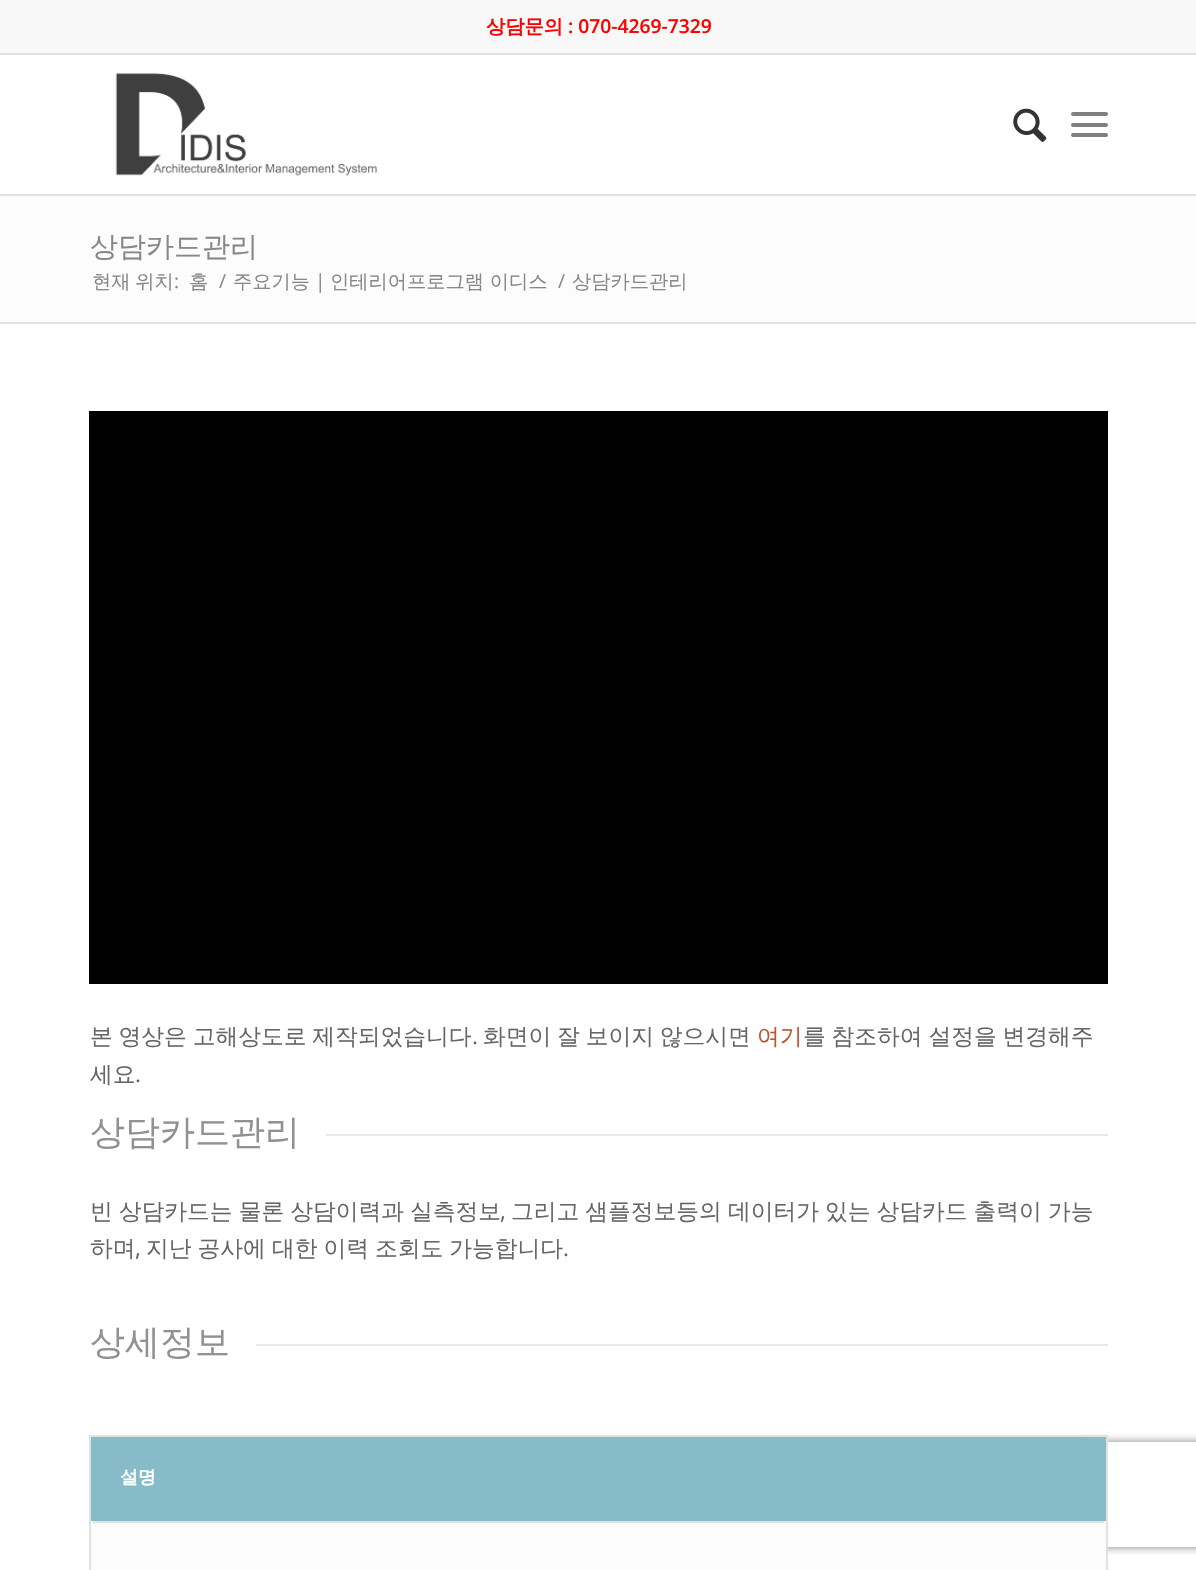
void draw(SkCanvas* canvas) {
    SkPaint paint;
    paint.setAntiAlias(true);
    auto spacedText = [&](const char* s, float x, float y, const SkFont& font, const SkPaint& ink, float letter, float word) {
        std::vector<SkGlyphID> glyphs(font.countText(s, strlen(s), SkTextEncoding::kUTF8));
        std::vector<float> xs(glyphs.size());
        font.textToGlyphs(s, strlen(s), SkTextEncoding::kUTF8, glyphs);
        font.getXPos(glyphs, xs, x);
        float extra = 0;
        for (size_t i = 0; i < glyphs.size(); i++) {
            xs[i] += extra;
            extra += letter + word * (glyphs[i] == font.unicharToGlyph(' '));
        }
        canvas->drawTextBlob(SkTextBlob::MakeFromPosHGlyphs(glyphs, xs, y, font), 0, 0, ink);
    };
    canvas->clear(0xFFFFFFFF);
    paint.setColor(0xFFF8F8F8);
    canvas->drawRect(SkRect::MakeXYWH(0, 0, 1196, 53), paint);
    paint.setColor(0xFFE1E1E1);
    canvas->drawRect(SkRect::MakeXYWH(0, 53, 1196, 2), paint);
    SkFont font1(fontMgr->matchFamilyStyle("WenQuanYi Zen Hei", SkFontStyle::Bold()), 19.25f);
    font1.setSubpixel(true);
    paint.setColor(0xFFFF0000);
    canvas->drawString("상담문의", 486, 33, font1, paint);
    SkFont font2(fontMgr->matchFamilyStyle("Open Sans", SkFontStyle(600, SkFontStyle::kNormal_Width, SkFontStyle::kUpright_Slant)), 19.25f);
    font2.setSubpixel(true);
    canvas->drawString(": 070-4269-7329", 568, 33, font2, paint);
    paint.setColor(0xFFE1E1E1);
    canvas->drawRect(SkRect::MakeXYWH(0, 194, 1196, 2), paint);
    canvas->drawImageRect(SkImages::DeferredFromEncodedData(SkData::MakeFromFileName("img1.png")), SkRect::MakeXYWH(115, 73, 263, 103), SkSamplingOptions());
    canvas->drawImageRect(SkImages::DeferredFromEncodedData(SkData::MakeFromFileName("img2.png")), SkRect::MakeXYWH(1013, 108, 34, 34), SkSamplingOptions());
    paint.setColor(0xFF808080);
    canvas->drawRoundRect(SkRect::MakeXYWH(1071, 123, 37, 4), 2, 2, paint);
    canvas->drawRoundRect(SkRect::MakeXYWH(1071, 112, 37, 4), 2, 2, paint);
    canvas->drawRoundRect(SkRect::MakeXYWH(1071, 133, 37, 4), 2, 2, paint);
    paint.setColor(0xFFFCFCFC);
    canvas->drawRect(SkRect::MakeXYWH(0, 196, 1196, 126), paint);
    SkFont font3(fontMgr->matchFamilyStyle("WenQuanYi Zen Hei", SkFontStyle(500, SkFontStyle::kNormal_Width, SkFontStyle::kUpright_Slant)), 28);
    font3.setSubpixel(true);
    paint.setColor(0xFF888888);
    canvas->drawString("상담카드관리", 90, 256, font3, paint);
    SkFont font4(fontMgr->matchFamilyStyle("WenQuanYi Zen Hei", SkFontStyle(500, SkFontStyle::kNormal_Width, SkFontStyle::kUpright_Slant)), 19.25f);
    font4.setSubpixel(true);
    spacedText("현재 위치", 92, 288, font4, paint, 0, -1);
    SkFont font5(fontMgr->matchFamilyStyle("Open Sans", SkFontStyle::Normal()), 19.25f);
    font5.setSubpixel(true);
    canvas->drawString(":", 174, 288, font5, paint);
    canvas->drawString("홈", 189, 288, font4, paint);
    canvas->drawString("/", 219, 288, font5, paint);
    canvas->drawString("주요기능", 233, 288, font4, paint);
    canvas->drawString("|", 315, 288, font5, paint);
    canvas->drawString("인테리어프로그램 이디스", 330, 288, font4, paint);
    canvas->drawString("/", 558, 288, font5, paint);
    canvas->drawString("상담카드관리", 572, 288, font4, paint);
    paint.setColor(0xFFE1E1E1);
    canvas->drawRect(SkRect::MakeXYWH(0, 322, 1196, 2), paint);
    paint.setColor(0xFF000000);
    canvas->drawRect(SkRect::MakeXYWH(89, 411, 1019, 573), paint);
    SkFont font6(fontMgr->matchFamilyStyle("WenQuanYi Zen Hei", SkFontStyle(500, SkFontStyle::kNormal_Width, SkFontStyle::kUpright_Slant)), 22.75f);
    font6.setSubpixel(true);
    paint.setColor(0xFF666666);
    spacedText("본 영상은 고해상도로 제작되었습니다", 90, 1044, font6, paint, 0, -1);
    SkFont font7(fontMgr->matchFamilyStyle("Open Sans", SkFontStyle::Normal()), 22.75f);
    font7.setSubpixel(true);
    canvas->drawString(".", 472, 1044, font7, paint);
    spacedText("화면이 잘 보이지 않으시면", 483, 1044, font6, paint, 0, -1);
    paint.setColor(0xFFC3512F);
    canvas->drawString("여기", 757, 1044, font6, paint);
    paint.setColor(0xFF666666);
    spacedText("를 참조하여 설정을 변경해주", 803, 1044, font6, paint, 0, -1);
    canvas->drawString("세요", 90, 1082, font6, paint);
    canvas->drawString(".", 135, 1082, font7, paint);
    SkFont font8(fontMgr->matchFamilyStyle("WenQuanYi Zen Hei", SkFontStyle(500, SkFontStyle::kNormal_Width, SkFontStyle::kUpright_Slant)), 35);
    font8.setSubpixel(true);
    paint.setColor(0xFF919191);
    canvas->drawString("상담카드관리", 90, 1144, font8, paint);
    paint.setColor(0xFFE9E9E9);
    canvas->drawRect(SkRect::MakeXYWH(326, 1134, 782, 2), paint);
    paint.setColor(0xFF666666);
    spacedText("빈 상담카드는 물론 상담이력과 실측정보", 90, 1219, font6, paint, 0, -0.75f);
    canvas->drawString(",", 500, 1219, font7, paint);
    spacedText("그리고 샘플정보등의 데이터가 있는 상담카드 출력이 가능", 511, 1219, font6, paint, 0, -0.75f);
    canvas->drawString("하며", 90, 1256, font6, paint);
    canvas->drawString(",", 135, 1256, font7, paint);
    spacedText("지난 공사에 대한 이력 조회도 가능합니다", 146, 1256, font6, paint, 0, -0.75f);
    canvas->drawString(".", 563, 1256, font7, paint);
    paint.setColor(0xFF919191);
    canvas->drawString("상세정보", 90, 1354, font8, paint);
    paint.setColor(0xFFE9E9E9);
    canvas->drawRect(SkRect::MakeXYWH(256, 1344, 852, 2), paint);
    canvas->save();
    canvas->clipPath(SkPathBuilder(SkPathFillType::kEvenOdd).moveTo(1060, 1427).lineTo(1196, 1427).lineTo(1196, 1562).lineTo(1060, 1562).close().moveTo(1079, 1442).lineTo(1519, 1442).cubicTo(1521, 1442, 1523, 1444, 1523, 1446).lineTo(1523, 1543).cubicTo(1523, 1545, 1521, 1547, 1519, 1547).lineTo(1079, 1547).cubicTo(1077, 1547, 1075, 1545, 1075, 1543).lineTo(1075, 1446).cubicTo(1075, 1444, 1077, 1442, 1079, 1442).close().detach(), true);
    paint.setColor(0xFF808080);
    paint.setMaskFilter(SkMaskFilter::MakeBlur(kNormal_SkBlurStyle, 4.5f));
    canvas->drawRoundRect(SkRect::MakeXYWH(1075, 1442, 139, 105), 4, 4, paint);
    paint.setMaskFilter(nullptr);
    canvas->restore();
    paint.setColor(0xFFE1E1E1);
    canvas->drawRect(SkRect::MakeXYWH(1106, 1435, 2, 135), paint);
    canvas->drawRect(SkRect::MakeXYWH(89, 1435, 2, 135), paint);
    paint.setColor(0xFF88BBC8);
    canvas->drawRect(SkRect::MakeXYWH(91, 1437, 1015, 84), paint);
    paint.setColor(0xFFE1E1E1);
    canvas->drawRect(SkRect::MakeXYWH(91, 1435, 1015, 2), paint);
    SkFont font9(fontMgr->matchFamilyStyle("WenQuanYi Zen Hei", SkFontStyle::Bold()), 18);
    font9.setSubpixel(true);
    paint.setColor(0xFFFFFFFF);
    canvas->drawString("설명", 120, 1483, font9, paint);
    paint.setColor(0xFFFCFCFC);
    canvas->drawRoundRect(SkRect::MakeXYWH(91, 1521, 1015, 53), 4, 4, paint);
    paint.setColor(0xFFE1E1E1);
    canvas->drawRect(SkRect::MakeXYWH(93, 1521, 1011, 2), paint);
}
